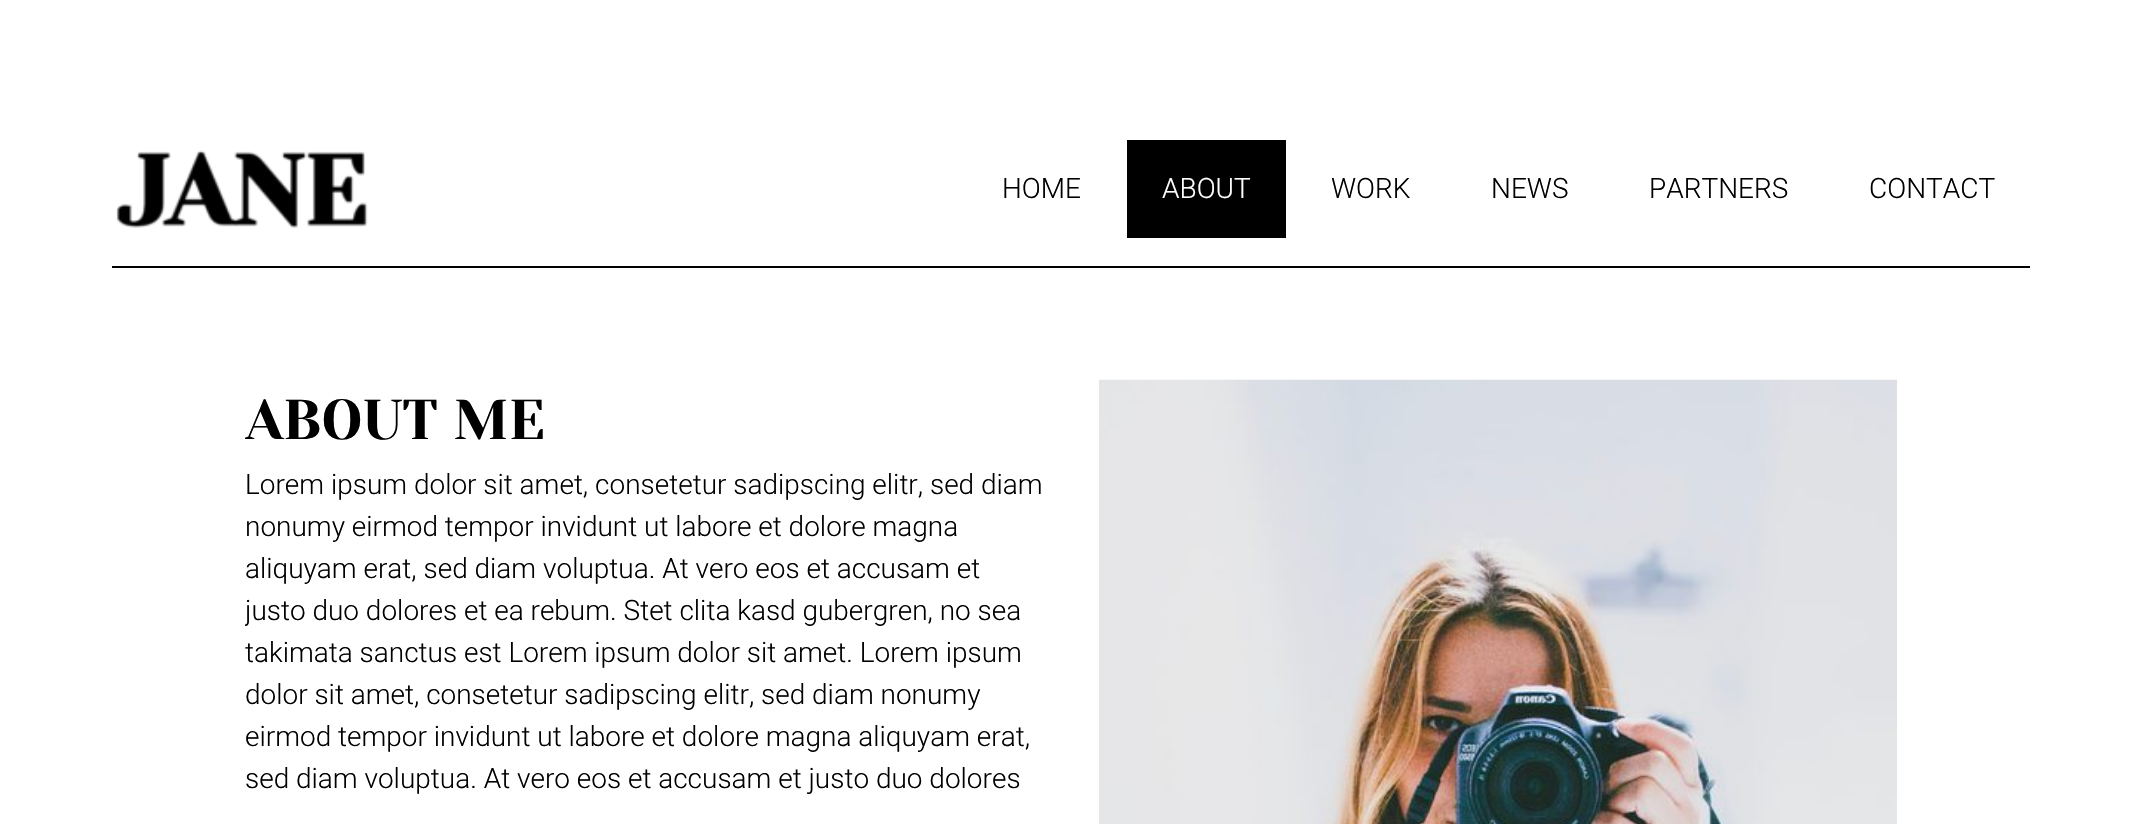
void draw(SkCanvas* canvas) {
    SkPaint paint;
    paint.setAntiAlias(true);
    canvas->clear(0xFFFFFFFF);
    paint.setColor(0xFF000000);
    canvas->drawRect(SkRect::MakeXYWH(112, 266, 1918, 2), paint);
    canvas->drawImageRect(SkImages::DeferredFromEncodedData(SkData::MakeFromFileName("img1.png")), SkRect::MakeXYWH(116, 150, 252, 78), SkSamplingOptions());
    SkFont font1(fontMgr->matchFamilyStyle("Roboto", SkFontStyle(300, SkFontStyle::kNormal_Width, SkFontStyle::kUpright_Slant)), 28);
    font1.setSubpixel(true);
    canvas->drawString("HOME", 1002, 198, font1, paint);
    canvas->drawRect(SkRect::MakeXYWH(1127, 140, 159, 98), paint);
    paint.setColor(0xFFFFFFFF);
    canvas->drawString("ABOUT", 1162, 198, font1, paint);
    paint.setColor(0xFF000000);
    canvas->drawString("WORK", 1331, 198, font1, paint);
    canvas->drawString("NEWS", 1491, 198, font1, paint);
    canvas->drawString("PARTNERS", 1649, 198, font1, paint);
    canvas->drawString("CONTACT", 1869, 198, font1, paint);
    canvas->save();
    canvas->clipRect(SkRect::MakeXYWH(245, 380, 798, 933));
    SkFont font2(fontMgr->matchFamilyStyle("Yeseva One", SkFontStyle::Normal()), 56);
    font2.setSubpixel(true);
    canvas->drawString("ABOUT ME", 245, 439, font2, paint);
    canvas->restore();
    canvas->drawString("Lorem ipsum dolor sit amet, consetetur sadipscing elitr, sed diam", 245, 494, font1, paint);
    canvas->drawString("nonumy eirmod tempor invidunt ut labore et dolore magna", 245, 536, font1, paint);
    canvas->drawString("aliquyam erat, sed diam voluptua. At vero eos et accusam et", 245, 578, font1, paint);
    canvas->save();
    canvas->clipRect(SkRect::MakeXYWH(245, 380, 798, 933));
    canvas->drawString("justo duo dolores et ea rebum. Stet clita kasd gubergren, no sea", 245, 620, font1, paint);
    canvas->restore();
    canvas->drawString("takimata sanctus est Lorem ipsum dolor sit amet. Lorem ipsum", 245, 662, font1, paint);
    canvas->drawString("dolor sit amet, consetetur sadipscing elitr, sed diam nonumy", 245, 704, font1, paint);
    canvas->drawString("eirmod tempor invidunt ut labore et dolore magna aliquyam erat,", 245, 746, font1, paint);
    canvas->drawString("sed diam voluptua. At vero eos et accusam et justo duo dolores", 245, 788, font1, paint);
    canvas->drawImageRect(SkImages::DeferredFromEncodedData(SkData::MakeFromFileName("img2.png")), SkRect::MakeXYWH(1099, 379, 798, 445), SkSamplingOptions());
}
